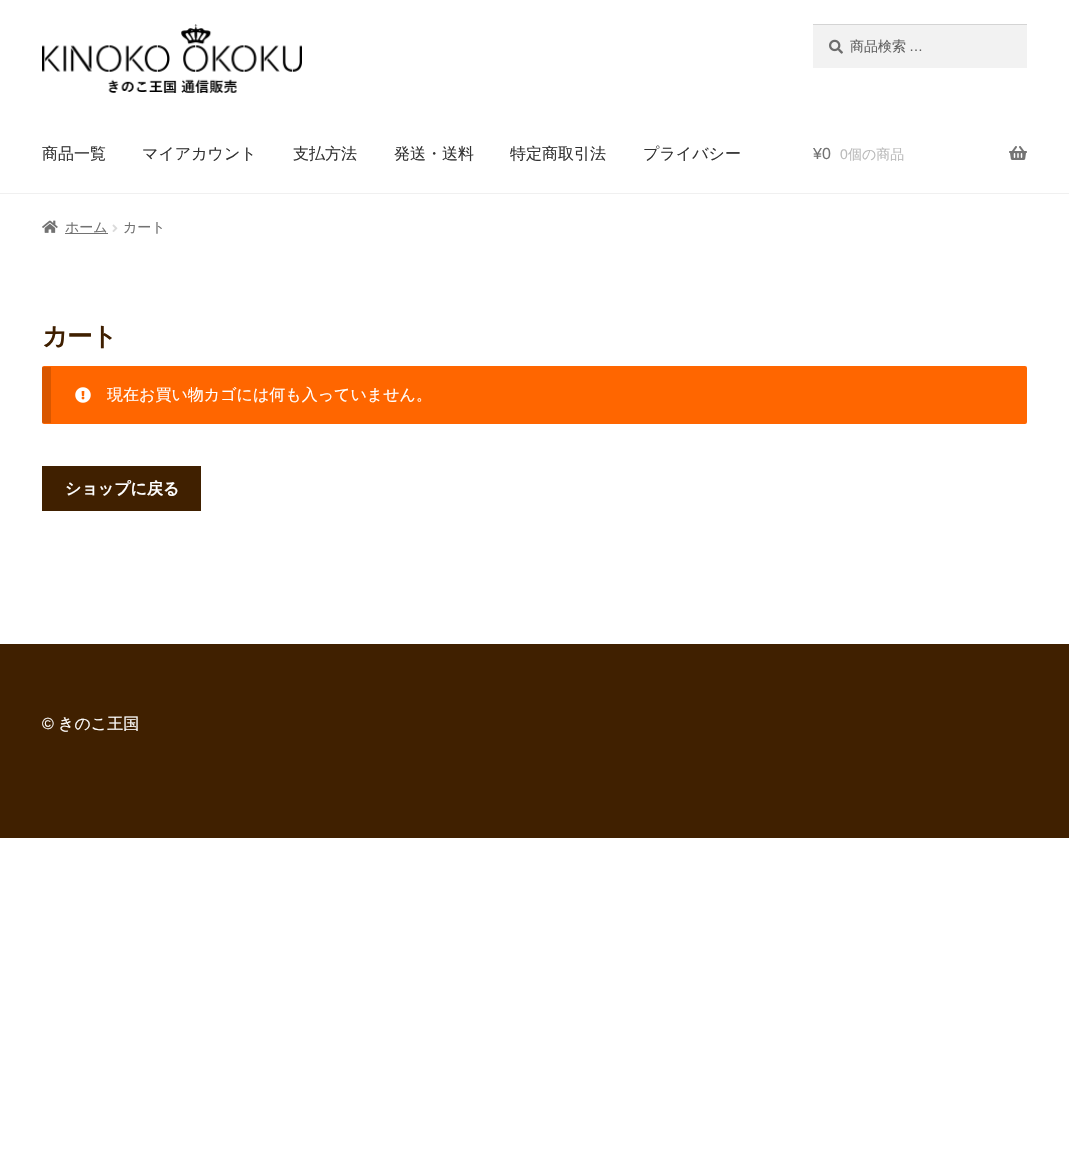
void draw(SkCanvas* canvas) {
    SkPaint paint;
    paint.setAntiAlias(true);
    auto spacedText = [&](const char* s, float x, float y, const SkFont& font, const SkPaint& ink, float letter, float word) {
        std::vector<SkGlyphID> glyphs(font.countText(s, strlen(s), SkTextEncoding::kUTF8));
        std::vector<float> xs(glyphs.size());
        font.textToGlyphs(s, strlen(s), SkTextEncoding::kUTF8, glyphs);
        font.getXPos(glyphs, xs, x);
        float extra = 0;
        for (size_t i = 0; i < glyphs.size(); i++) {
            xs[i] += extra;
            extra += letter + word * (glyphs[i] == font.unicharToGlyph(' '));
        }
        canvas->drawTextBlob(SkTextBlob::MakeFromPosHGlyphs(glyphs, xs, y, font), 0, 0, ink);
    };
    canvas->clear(0xFFFFFFFF);
    paint.setColor(0xFFF0F0F0);
    canvas->drawRect(SkRect::MakeXYWH(0, 193, 1069, 1), paint);
    canvas->drawImageRect(SkImages::DeferredFromEncodedData(SkData::MakeFromFileName("img1.png")), SkRect::MakeXYWH(42, 24, 260, 69), SkSamplingOptions());
    paint.setColor(0xFFF2F2F2);
    canvas->drawRect(SkRect::MakeXYWH(813, 25, 214, 43), paint);
    canvas->drawImageRect(SkImages::DeferredFromEncodedData(SkData::MakeFromFileName("img2.png")), SkRect::MakeXYWH(829, 39, 14, 15), SkSamplingOptions());
    paint.setColor(0xFFD4D4D4);
    canvas->drawRect(SkRect::MakeXYWH(813, 24, 214, 1), paint);
    SkFont font1(fontMgr->matchFamilyStyle("WenQuanYi Zen Hei", SkFontStyle(500, SkFontStyle::kNormal_Width, SkFontStyle::kUpright_Slant)), 14);
    font1.setSubpixel(true);
    paint.setColor(0xFF616161);
    canvas->drawString("商品検索", 850, 51, font1, paint);
    SkFont font2(fontMgr->matchFamilyStyle("Liberation Sans", SkFontStyle::Normal()), 14);
    font2.setSubpixel(true);
    canvas->drawString("…", 909, 51, font2, paint);
    SkFont font3(fontMgr->matchFamilyStyle("WenQuanYi Zen Hei", SkFontStyle(500, SkFontStyle::kNormal_Width, SkFontStyle::kUpright_Slant)), 16);
    font3.setSubpixel(true);
    paint.setColor(0xFF333333);
    canvas->drawString("商品一覧", 42, 159, font3, paint);
    canvas->drawString("マイアカウント", 142, 159, font3, paint);
    canvas->drawString("支払方法", 293, 159, font3, paint);
    canvas->drawString("発送・送料", 394, 159, font3, paint);
    canvas->drawString("特定商取引法", 510, 159, font3, paint);
    canvas->drawString("プライバシー", 643, 159, font3, paint);
    SkFont font4(fontMgr->matchFamilyStyle("Liberation Sans", SkFontStyle::Normal()), 16);
    font4.setSubpixel(true);
    paint.setColor(0xFF727272);
    canvas->drawString("¥0", 813, 159, font4, paint);
    paint.setColor(0xFFBABABA);
    canvas->drawString("0", 840, 159, font2, paint);
    canvas->drawString("個の商品", 848, 159, font1, paint);
    canvas->drawImageRect(SkImages::DeferredFromEncodedData(SkData::MakeFromFileName("img3.png")), SkRect::MakeXYWH(1009, 146, 18, 14), SkSamplingOptions());
    canvas->drawImageRect(SkImages::DeferredFromEncodedData(SkData::MakeFromFileName("img4.png")), SkRect::MakeXYWH(42, 220, 16, 13), SkSamplingOptions());
    paint.setColor(0xFF727272);
    canvas->drawRect(SkRect::MakeXYWH(65, 233, 43, 1), paint);
    canvas->drawString("ホーム", 65, 232, font1, paint);
    canvas->drawImageRect(SkImages::DeferredFromEncodedData(SkData::MakeFromFileName("img5.png")), SkRect::MakeXYWH(112, 224, 6, 8), SkSamplingOptions());
    canvas->drawString("カート", 123, 232, font1, paint);
    SkFont font5(fontMgr->matchFamilyStyle("WenQuanYi Zen Hei", SkFontStyle::Bold()), 25.5f);
    font5.setSubpixel(true);
    paint.setColor(0xFF3F1F00);
    spacedText("カート", 42, 345, font5, paint, -1, 0);
    paint.setColor(0xFFFF6600);
    canvas->drawRoundRect(SkRect::MakeXYWH(42, 366, 985, 58), 2, 2, paint);
    paint.setColor(0x26000000);
    canvas->drawRect(SkRect::MakeXYWH(42, 367, 9, 56), paint);
    canvas->drawImageRect(SkImages::DeferredFromEncodedData(SkData::MakeFromFileName("img6.png")), SkRect::MakeXYWH(75, 387, 16, 16), SkSamplingOptions());
    paint.setColor(0xFFFFFFFF);
    canvas->drawString("現在お買い物カゴには何も入っていません。", 107, 400, font3, paint);
    paint.setColor(0xFF402000);
    canvas->drawRect(SkRect::MakeXYWH(42, 466, 159, 45), paint);
    SkFont font6(fontMgr->matchFamilyStyle("WenQuanYi Zen Hei", SkFontStyle::Bold()), 16);
    font6.setSubpixel(true);
    paint.setColor(0xFFFFFFFF);
    canvas->drawString("ショップに戻る", 65, 494, font6, paint);
    paint.setColor(0xFF402000);
    canvas->drawRect(SkRect::MakeXYWH(0, 644, 1069, 194), paint);
    paint.setColor(0xFFFFFFFF);
    canvas->drawString("©", 42, 729, font4, paint);
    canvas->drawString("きのこ王国", 58, 729, font3, paint);
}
